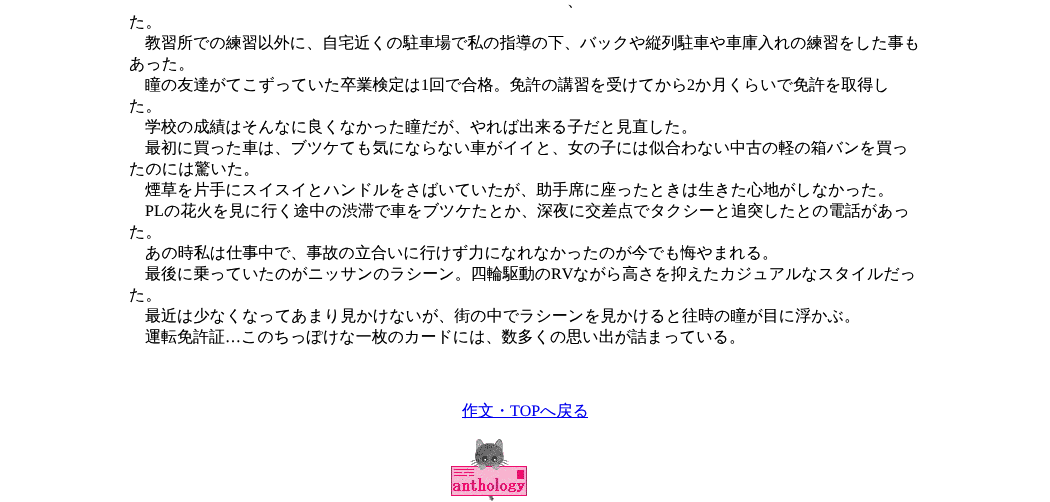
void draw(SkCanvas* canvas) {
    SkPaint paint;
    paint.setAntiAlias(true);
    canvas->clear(0xFFFFFFFF);
    SkFont font1(fontMgr->matchFamilyStyle("WenQuanYi Zen Hei", SkFontStyle(500, SkFontStyle::kNormal_Width, SkFontStyle::kUpright_Slant)), 16);
    font1.setSubpixel(true);
    paint.setColor(0xFF000000);
    canvas->drawString("、", 567, 6, font1, paint);
    canvas->drawString("た。", 129, 27, font1, paint);
    canvas->drawString("教習所での練習以外に、自宅近くの駐車場で私の指導の下、バックや縦列駐車や車庫入れの練習をした事も", 145, 48, font1, paint);
    canvas->drawString("あった。", 129, 69, font1, paint);
    canvas->drawString("瞳の友達がてこずっていた卒業検定は", 145, 90, font1, paint);
    SkFont font2(fontMgr->matchFamilyStyle("Liberation Serif", SkFontStyle::Normal()), 16);
    font2.setSubpixel(true);
    canvas->drawString("1", 421, 90, font2, paint);
    canvas->drawString("回で合格。免許の講習を受けてから", 429, 90, font1, paint);
    canvas->drawString("2", 687, 90, font2, paint);
    canvas->drawString("か月くらいで免許を取得し", 695, 90, font1, paint);
    canvas->drawString("た。", 129, 111, font1, paint);
    canvas->drawString("学校の成績はそんなに良くなかった瞳だが、やれば出来る子だと見直した。", 145, 132, font1, paint);
    canvas->drawString("最初に買った車は、ブツケても気にならない車がイイと、女の子には似合わない中古の軽の箱バンを買っ", 145, 153, font1, paint);
    canvas->drawString("たのには驚いた。", 129, 174, font1, paint);
    canvas->drawString("煙草を片手にスイスイとハンドルをさばいていたが、助手席に座ったときは生きた心地がしなかった。", 145, 195, font1, paint);
    canvas->drawString("PL", 145, 216, font2, paint);
    canvas->drawString("の花火を見に行く途中の渋滞で車をブツケたとか、深夜に交差点でタクシーと追突したとの電話があっ", 164, 216, font1, paint);
    canvas->drawString("た。", 129, 237, font1, paint);
    canvas->drawString("あの時私は仕事中で、事故の立合いに行けず力になれなかったのが今でも悔やまれる。", 145, 258, font1, paint);
    canvas->drawString("最後に乗っていたのがニッサンのラシーン。四輪駆動の", 145, 279, font1, paint);
    canvas->drawString("RV", 551, 279, font2, paint);
    canvas->drawString("ながら高さを抑えたカジュアルなスタイルだっ", 573, 279, font1, paint);
    canvas->drawString("た。", 129, 300, font1, paint);
    canvas->drawString("最近は少なくなってあまり見かけないが、街の中でラシーンを見かけると往時の瞳が目に浮かぶ。", 145, 321, font1, paint);
    canvas->drawString("運転免許証", 145, 342, font1, paint);
    canvas->drawString("…", 225, 342, font2, paint);
    canvas->drawString("このちっぽけな一枚のカードには、数多くの思い出が詰まっている。", 241, 342, font1, paint);
    paint.setColor(0xFF0000EE);
    canvas->drawRect(SkRect::MakeXYWH(462, 417, 126, 1), paint);
    canvas->drawString("作文・", 462, 416, font1, paint);
    canvas->drawString("TOP", 510, 416, font2, paint);
    canvas->drawString("へ戻る", 540, 416, font1, paint);
    canvas->drawImageRect(SkImages::DeferredFromEncodedData(SkData::MakeFromFileName("img1.png")), SkRect::MakeXYWH(451, 439, 76, 62), SkSamplingOptions());
}
